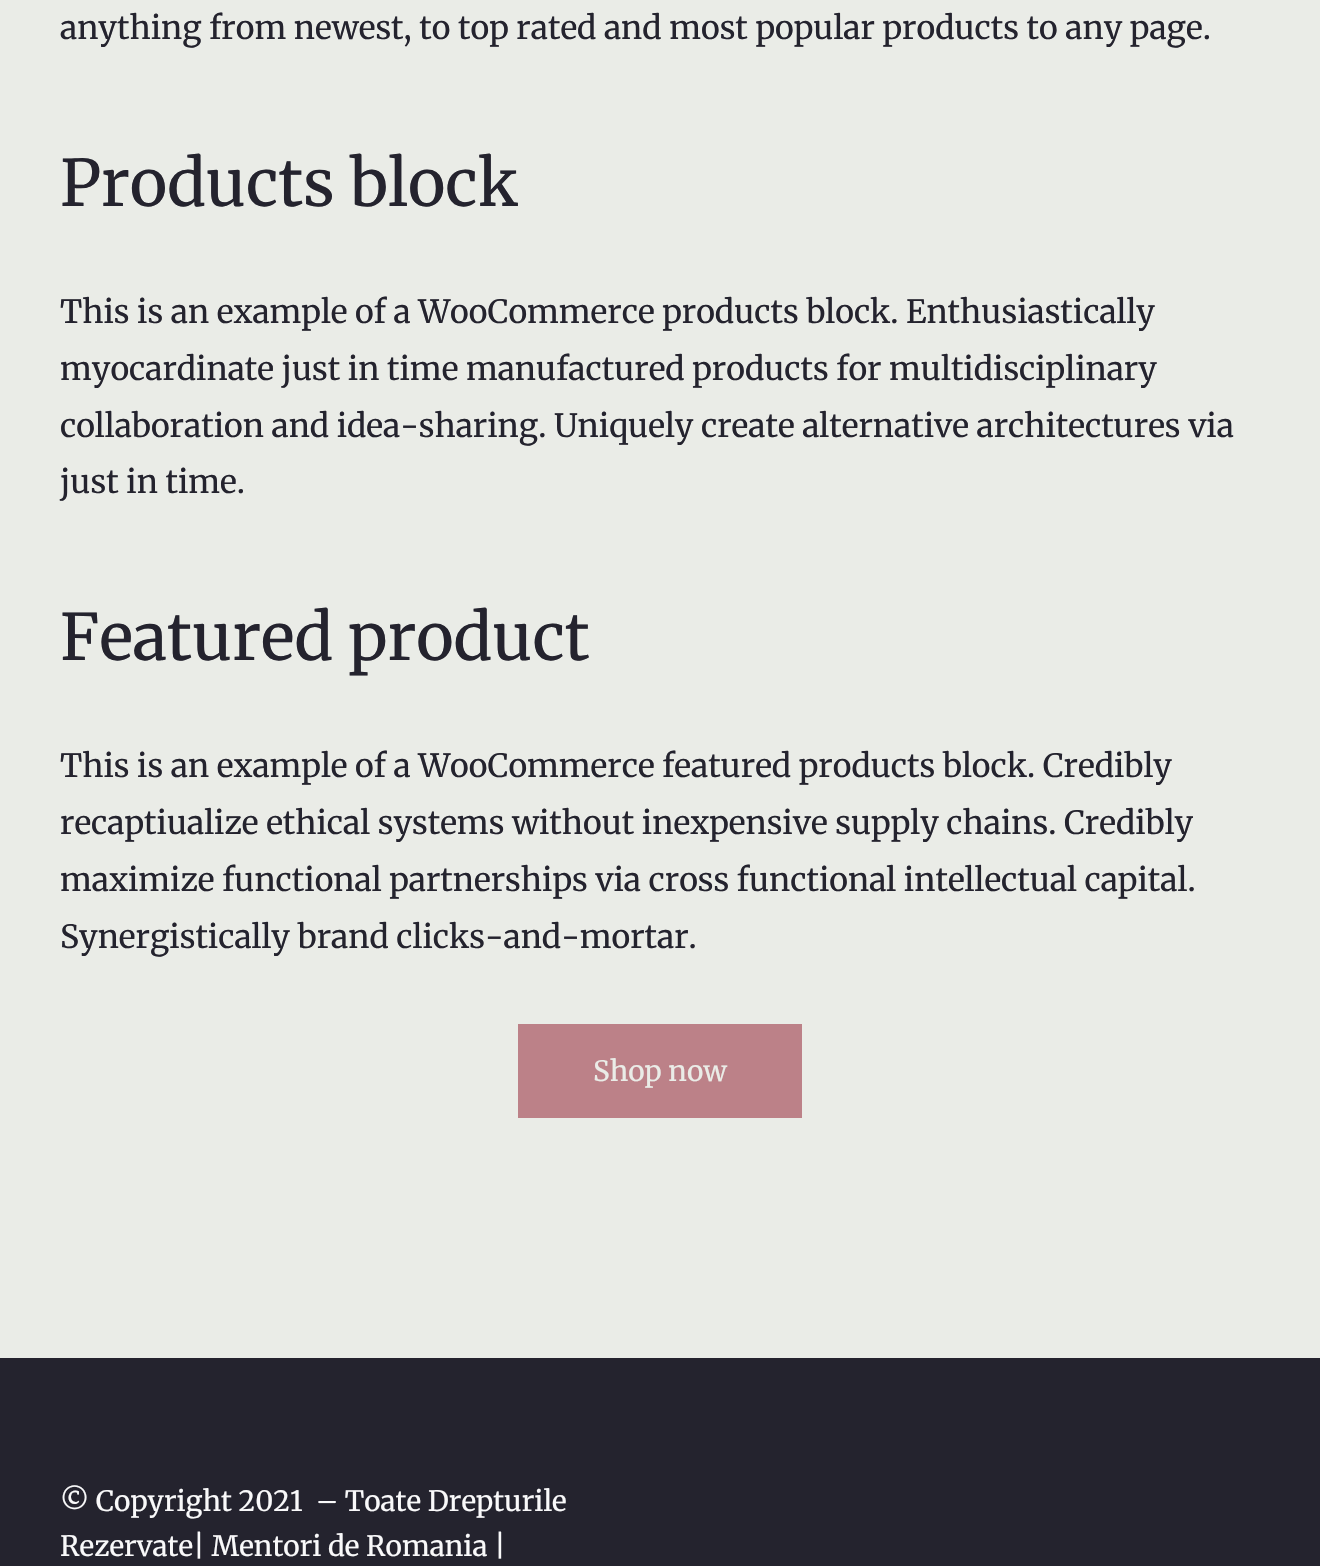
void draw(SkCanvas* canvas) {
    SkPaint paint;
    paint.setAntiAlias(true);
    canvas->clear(0xFFEAECE7);
    SkFont font1(fontMgr->matchFamilyStyle("Merriweather", SkFontStyle(300, SkFontStyle::kNormal_Width, SkFontStyle::kUpright_Slant)), 32);
    font1.setSubpixel(true);
    paint.setColor(0xFF24232E);
    canvas->drawString("anything from newest, to top rated and most popular products to any page.", 60, 39, font1, paint);
    SkFont font2(fontMgr->matchFamilyStyle("Merriweather", SkFontStyle(300, SkFontStyle::kNormal_Width, SkFontStyle::kUpright_Slant)), 64);
    font2.setSubpixel(true);
    canvas->drawString("Products block", 60, 206, font2, paint);
    canvas->drawString("This is an example of a WooCommerce products block. Enthusiastically", 60, 323, font1, paint);
    canvas->drawString("myocardinate just in time manufactured products for multidisciplinary", 60, 380, font1, paint);
    canvas->drawString("collaboration and idea-sharing. Uniquely create alternative architectures via", 60, 437, font1, paint);
    canvas->drawString("just in time.", 60, 493, font1, paint);
    canvas->drawString("Featured product", 60, 660, font2, paint);
    canvas->drawString("This is an example of a WooCommerce featured products block. Credibly", 60, 777, font1, paint);
    canvas->drawString("recaptiualize ethical systems without inexpensive supply chains. Credibly", 60, 834, font1, paint);
    canvas->drawString("maximize functional partnerships via cross functional intellectual capital.", 60, 891, font1, paint);
    canvas->drawString("Synergistically brand clicks-and-mortar.", 60, 948, font1, paint);
    paint.setColor(0xFFBC8188);
    canvas->drawRect(SkRect::MakeXYWH(518, 1024, 284, 94), paint);
    SkFont font3(fontMgr->matchFamilyStyle("Merriweather", SkFontStyle(300, SkFontStyle::kNormal_Width, SkFontStyle::kUpright_Slant)), 28);
    font3.setSubpixel(true);
    paint.setColor(0xFFEAECE7);
    canvas->drawString("Shop now", 593, 1081, font3, paint);
    paint.setColor(0xFF24232E);
    canvas->drawRect(SkRect::MakeXYWH(0, 1358, 1320, 208), paint);
    paint.setColor(0xFFF9F9FA);
    canvas->drawString("© Copyright 2021  – Toate Drepturile", 60, 1511, font3, paint);
    canvas->drawString("Rezervate| Mentori de Romania |", 60, 1556, font3, paint);
}
